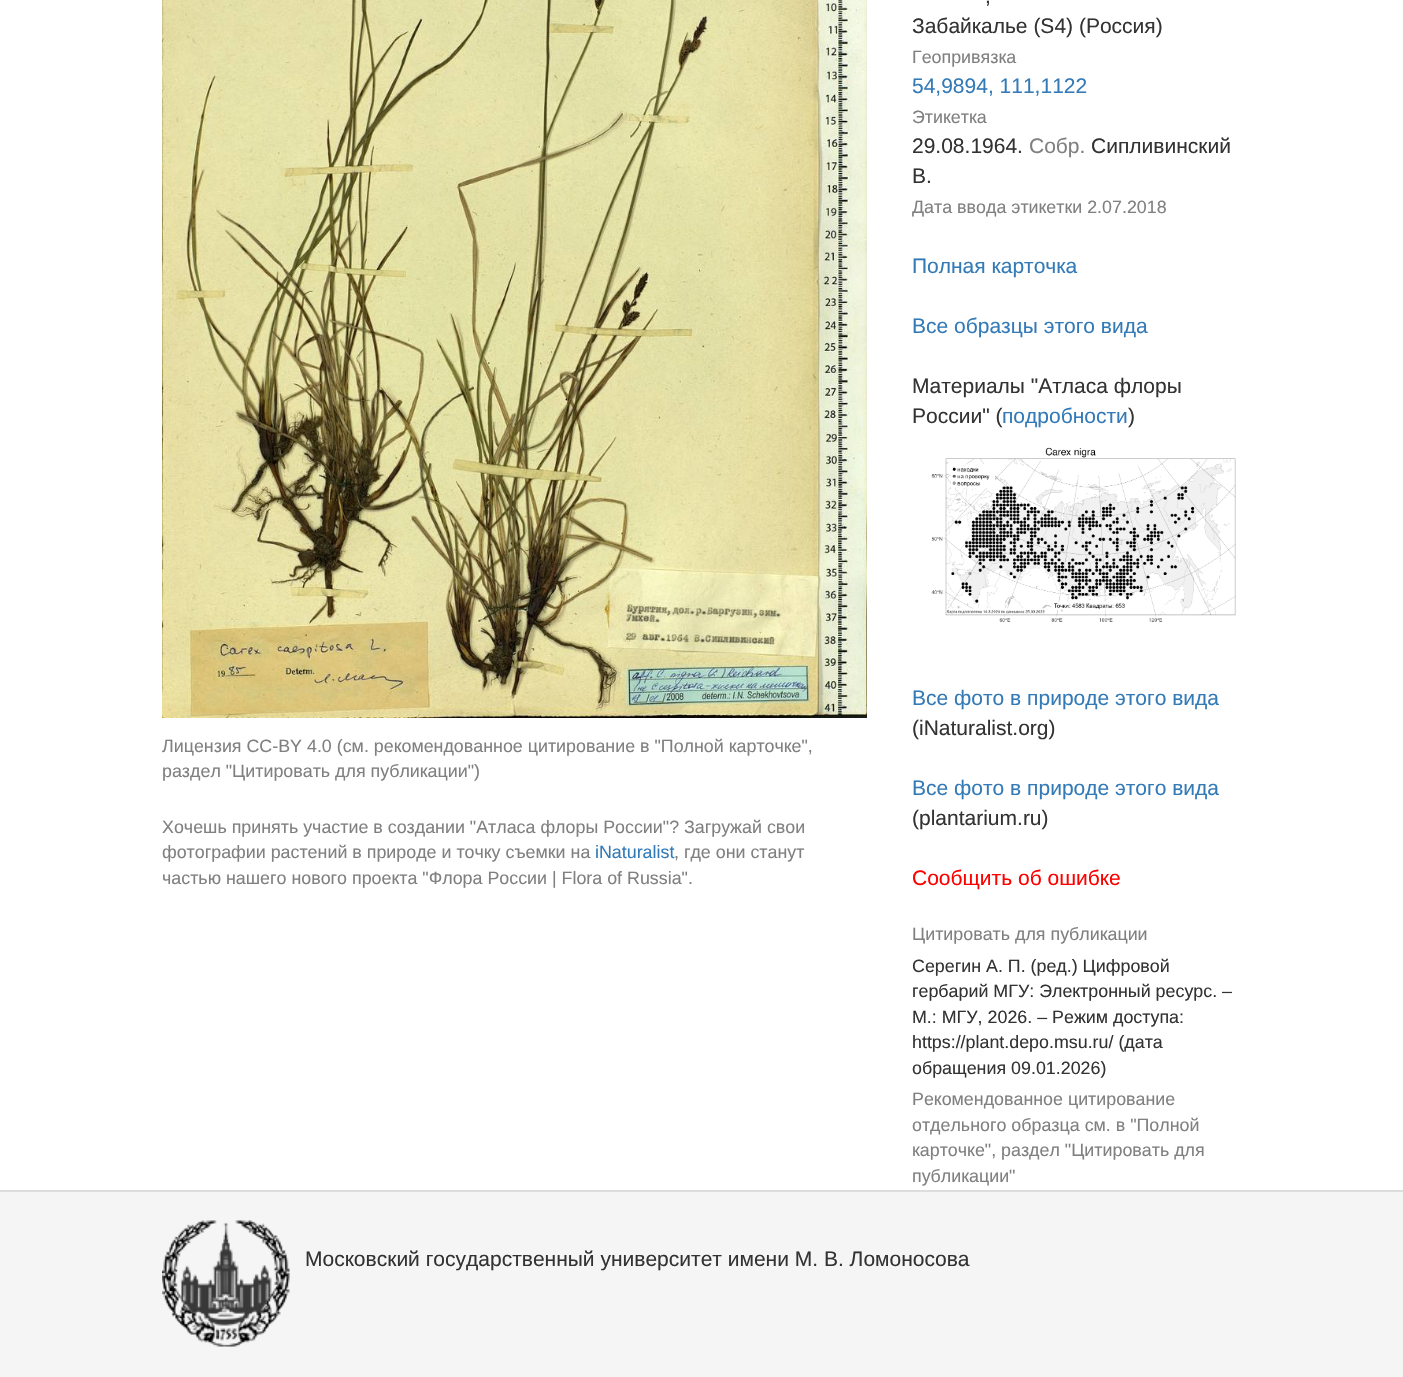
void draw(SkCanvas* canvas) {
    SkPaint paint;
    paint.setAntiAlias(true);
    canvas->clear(0xFFFFFFFF);
    canvas->drawImageRect(SkImages::DeferredFromEncodedData(SkData::MakeFromFileName("img1.png")), SkRect::MakeXYWH(162, 0, 705, 718), SkSamplingOptions());
    SkFont font1(fontMgr->matchFamilyStyle("Liberation Sans", SkFontStyle::Normal()), 17.85f);
    font1.setSubpixel(true);
    paint.setColor(0xFF808080);
    canvas->drawString("Лицензия CC-BY 4.0 (см. рекомендованное цитирование в \"Полной карточке\",", 162, 752, font1, paint);
    canvas->drawString("раздел \"Цитировать для публикации\")", 162, 777, font1, paint);
    canvas->drawString("Хочешь принять участие в создании \"Атласа флоры России\"? Загружай свои", 162, 833, font1, paint);
    canvas->drawString("фотографии растений в природе и точку съемки на", 162, 858, font1, paint);
    paint.setColor(0xFF337AB7);
    canvas->drawString("iNaturalist", 595, 858, font1, paint);
    paint.setColor(0xFF808080);
    canvas->drawString(", где они станут", 674, 858, font1, paint);
    canvas->drawString("частью нашего нового проекта \"Флора России | Flora of Russia\".", 162, 884, font1, paint);
    SkFont font2(fontMgr->matchFamilyStyle("Liberation Sans", SkFontStyle::Normal()), 21);
    font2.setSubpixel(true);
    paint.setColor(0xFF333333);
    canvas->drawString(",", 985, 3, font2, paint);
    canvas->drawString("Забайкалье (S4) (Россия)", 912, 33, font2, paint);
    paint.setColor(0xFF808080);
    canvas->drawString("Геопривязка", 912, 63, font1, paint);
    paint.setColor(0xFF337AB7);
    canvas->drawString("54,9894, 111,1122", 912, 93, font2, paint);
    paint.setColor(0xFF808080);
    canvas->drawString("Этикетка", 912, 123, font1, paint);
    paint.setColor(0xFF333333);
    canvas->drawString("29.08.1964.", 912, 153, font2, paint);
    paint.setColor(0xFF808080);
    canvas->drawString("Собр.", 1029, 153, font2, paint);
    paint.setColor(0xFF333333);
    canvas->drawString("Сипливинский", 1091, 153, font2, paint);
    canvas->drawString("В.", 912, 183, font2, paint);
    paint.setColor(0xFF808080);
    canvas->drawString("Дата ввода этикетки 2.07.2018", 912, 213, font1, paint);
    paint.setColor(0xFF337AB7);
    canvas->drawString("Полная карточка", 912, 273, font2, paint);
    canvas->drawString("Все образцы этого вида", 912, 333, font2, paint);
    paint.setColor(0xFF333333);
    canvas->drawString("Материалы \"Атласа флоры", 912, 393, font2, paint);
    canvas->drawString("России\" (", 912, 423, font2, paint);
    paint.setColor(0xFF337AB7);
    canvas->drawString("подробности", 1002, 423, font2, paint);
    paint.setColor(0xFF333333);
    canvas->drawString(")", 1128, 423, font2, paint);
    canvas->drawImageRect(SkImages::DeferredFromEncodedData(SkData::MakeFromFileName("img2.png")), SkRect::MakeXYWH(931, 447, 305, 175), SkSamplingOptions());
    paint.setColor(0xFF337AB7);
    canvas->drawString("Все фото в природе этого вида", 912, 705, font2, paint);
    paint.setColor(0xFF333333);
    canvas->drawString("(iNaturalist.org)", 912, 735, font2, paint);
    paint.setColor(0xFF337AB7);
    canvas->drawString("Все фото в природе этого вида", 912, 795, font2, paint);
    paint.setColor(0xFF333333);
    canvas->drawString("(plantarium.ru)", 912, 825, font2, paint);
    paint.setColor(0xFFFF0000);
    canvas->drawString("Сообщить об ошибке", 912, 885, font2, paint);
    paint.setColor(0xFF808080);
    canvas->drawString("Цитировать для публикации", 912, 940, font1, paint);
    paint.setColor(0xFF333333);
    canvas->drawString("Серегин А. П. (ред.) Цифровой", 912, 972, font1, paint);
    canvas->drawString("гербарий МГУ: Электронный ресурс. –", 912, 997, font1, paint);
    canvas->drawString("М.: МГУ, 2026. – Режим доступа:", 912, 1023, font1, paint);
    canvas->drawString("https://plant.depo.msu.ru/ (дата", 912, 1048, font1, paint);
    canvas->drawString("обращения 09.01.2026)", 912, 1074, font1, paint);
    paint.setColor(0xFF808080);
    canvas->drawString("Рекомендованное цитирование", 912, 1105, font1, paint);
    canvas->drawString("отдельного образца см. в \"Полной", 912, 1131, font1, paint);
    canvas->drawString("карточке\", раздел \"Цитировать для", 912, 1156, font1, paint);
    canvas->drawString("публикации\"", 912, 1182, font1, paint);
    paint.setColor(0xFFF5F5F5);
    canvas->drawRect(SkRect::MakeXYWH(0, 1192, 1403, 185), paint);
    paint.setColor(0xFFDDDDDD);
    canvas->drawRect(SkRect::MakeXYWH(0, 1190, 1403, 2), paint);
    canvas->drawImageRect(SkImages::DeferredFromEncodedData(SkData::MakeFromFileName("img3.png")), SkRect::MakeXYWH(162, 1220, 128, 127), SkSamplingOptions());
    paint.setColor(0xFF333333);
    canvas->drawString("Московский государственный университет имени М. В. Ломоносова", 305, 1266, font2, paint);
}
